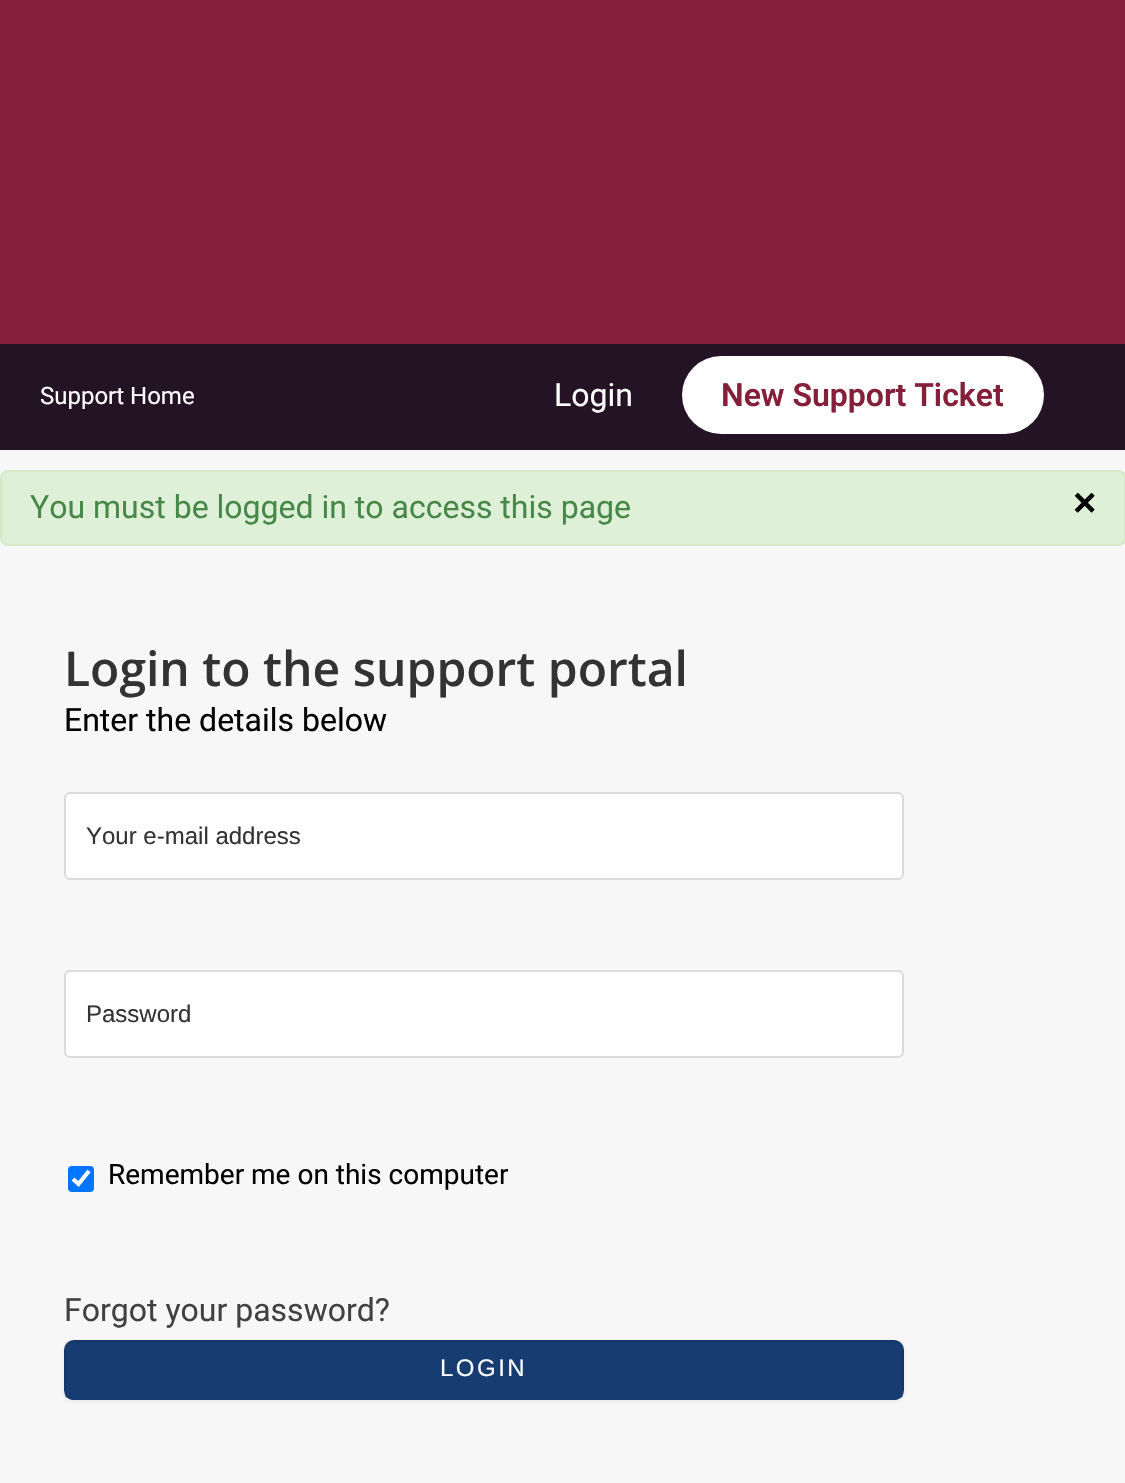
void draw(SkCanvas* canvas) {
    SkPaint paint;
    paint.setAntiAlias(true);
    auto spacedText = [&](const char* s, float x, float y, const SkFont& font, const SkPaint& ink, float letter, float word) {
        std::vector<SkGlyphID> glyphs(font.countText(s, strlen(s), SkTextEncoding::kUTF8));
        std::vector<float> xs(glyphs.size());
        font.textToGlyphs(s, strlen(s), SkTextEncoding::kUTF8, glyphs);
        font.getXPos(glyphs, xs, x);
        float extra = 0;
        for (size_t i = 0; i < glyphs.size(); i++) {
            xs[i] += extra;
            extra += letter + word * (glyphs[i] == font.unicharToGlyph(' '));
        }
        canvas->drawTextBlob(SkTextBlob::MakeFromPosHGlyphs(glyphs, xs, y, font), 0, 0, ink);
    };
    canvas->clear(0xFFF7F7F7);
    paint.setColor(0xFF851F3A);
    canvas->drawRect(SkRect::MakeXYWH(0, 0, 1125, 344), paint);
    paint.setColor(0xFF231325);
    canvas->drawRect(SkRect::MakeXYWH(0, 344, 1125, 106), paint);
    SkFont font1(fontMgr->matchFamilyStyle("Roboto", SkFontStyle::Normal()), 24);
    font1.setSubpixel(true);
    paint.setColor(0xFFFFFFFF);
    canvas->drawString("Support Home", 40, 404, font1, paint);
    SkFont font2(fontMgr->matchFamilyStyle("Roboto", SkFontStyle::Normal()), 32);
    font2.setSubpixel(true);
    canvas->drawString("Login", 554, 406, font2, paint);
    canvas->drawRoundRect(SkRect::MakeXYWH(682, 356, 362, 78), 39, 39, paint);
    SkFont font3(fontMgr->matchFamilyStyle("Roboto", SkFontStyle(600, SkFontStyle::kNormal_Width, SkFontStyle::kUpright_Slant)), 32);
    font3.setSubpixel(true);
    paint.setColor(0xFF851F3A);
    canvas->drawString("New Support Ticket", 721, 406, font3, paint);
    paint.setColor(0xFFDFF0D8);
    canvas->drawRoundRect(SkRect::MakeXYWH(1, 471, 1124, 74), 7, 7, paint);
    paint.setStyle(SkPaint::kStroke_Style);
    paint.setStrokeWidth(2);
    paint.setColor(0xFFD6E9C6);
    canvas->drawRoundRect(SkRect::MakeXYWH(1, 471, 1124, 74), 7, 7, paint);
    paint.setStyle(SkPaint::kFill_Style);
    paint.setColor(0xFF468847);
    canvas->drawString("You must be logged in to access this page", 30, 518, font2, paint);
    SkFont font4(fontMgr->matchFamilyStyle("Liberation Sans", SkFontStyle::Bold()), 40);
    font4.setSubpixel(true);
    paint.setColor(0xFF000000);
    canvas->drawString("×", 1073, 516, font4, paint);
    SkFont font5(fontMgr->matchFamilyStyle("Open Sans", SkFontStyle(600, SkFontStyle::kNormal_Width, SkFontStyle::kUpright_Slant)), 48);
    font5.setSubpixel(true);
    paint.setColor(0xFF333333);
    canvas->drawString("Login to the support portal", 64, 686, font5, paint);
    paint.setColor(0xFF000000);
    canvas->drawString("Enter the details below", 64, 731, font2, paint);
    paint.setColor(0xFFFFFFFF);
    canvas->drawRoundRect(SkRect::MakeXYWH(65, 793, 838, 86), 5, 5, paint);
    paint.setStyle(SkPaint::kStroke_Style);
    paint.setColor(0xFFDBDBDB);
    canvas->drawRoundRect(SkRect::MakeXYWH(65, 793, 838, 86), 5, 5, paint);
    SkFont font6(fontMgr->matchFamilyStyle("Liberation Sans", SkFontStyle::Normal()), 24);
    font6.setSubpixel(true);
    paint.setStyle(SkPaint::kFill_Style);
    paint.setColor(0xFF333333);
    canvas->drawString("Your e-mail address", 86, 844, font6, paint);
    paint.setColor(0xFFFFFFFF);
    canvas->drawRoundRect(SkRect::MakeXYWH(65, 971, 838, 86), 5, 5, paint);
    paint.setStyle(SkPaint::kStroke_Style);
    paint.setColor(0xFFDBDBDB);
    canvas->drawRoundRect(SkRect::MakeXYWH(65, 971, 838, 86), 5, 5, paint);
    paint.setStyle(SkPaint::kFill_Style);
    paint.setColor(0xFF333333);
    canvas->drawString("Password", 86, 1022, font6, paint);
    paint.setColor(0xFF0075FF);
    canvas->drawRoundRect(SkRect::MakeXYWH(68, 1166, 26, 26), 4, 4, paint);
    paint.setStyle(SkPaint::kStroke_Style);
    paint.setStrokeWidth(4.2f);
    paint.setColor(0xFFFFFFFF);
    canvas->drawPath(SkPathBuilder().moveTo(73, 1179).lineTo(78.5f, 1184).lineTo(89, 1171).detach(), paint);
    SkFont font7(fontMgr->matchFamilyStyle("Roboto", SkFontStyle::Normal()), 28);
    font7.setSubpixel(true);
    paint.setStyle(SkPaint::kFill_Style);
    paint.setColor(0xFF000000);
    canvas->drawString("Remember me on this computer", 108, 1184, font7, paint);
    paint.setColor(0xFF414042);
    canvas->drawString("Forgot your password?", 64, 1321, font2, paint);
    paint.setColor(0x0D000000);
    paint.setMaskFilter(SkMaskFilter::MakeBlur(kNormal_SkBlurStyle, 2));
    canvas->drawRoundRect(SkRect::MakeXYWH(64, 1342, 840, 60), 10, 10, paint);
    paint.setMaskFilter(nullptr);
    paint.setColor(0xFF173C72);
    canvas->drawRoundRect(SkRect::MakeXYWH(64, 1340, 840, 60), 10, 10, paint);
    paint.setColor(0x1A000000);
    canvas->drawPath(SkPathBuilder().moveTo(74, 1340).cubicTo(71, 1340, 68, 1341, 67, 1343).lineTo(68, 1344).cubicTo(70, 1343, 72, 1342, 74, 1342).lineTo(894, 1342).cubicTo(896, 1342, 898, 1343, 900, 1344).lineTo(901, 1343).cubicTo(900, 1341, 897, 1340, 894, 1340).close().detach(), paint);
    canvas->drawPath(SkPathBuilder().moveTo(904, 1390).lineTo(904, 1350).cubicTo(904, 1347, 903, 1344, 901, 1343).lineTo(900, 1344).lineTo(902, 1349).lineTo(902, 1390).lineTo(901, 1392).lineTo(903, 1396).cubicTo(903, 1394, 904, 1392, 904, 1390).close().detach(), paint);
    paint.setColor(0xFF173C72);
    canvas->drawPath(SkPathBuilder().moveTo(74, 1400).lineTo(894, 1400).cubicTo(898, 1400, 901, 1398, 903, 1396).lineTo(901, 1392).cubicTo(900, 1393, 897, 1394, 894, 1394).lineTo(74, 1394).cubicTo(71, 1394, 68, 1393, 67, 1392).lineTo(65, 1396).cubicTo(67, 1398, 70, 1400, 74, 1400).close().detach(), paint);
    paint.setColor(0x1A000000);
    canvas->drawPath(SkPathBuilder().moveTo(64, 1350).lineTo(64, 1390).cubicTo(64, 1392, 65, 1394, 65, 1396).lineTo(67, 1392).lineTo(66, 1390).lineTo(66, 1349).lineTo(68, 1344).lineTo(67, 1343).cubicTo(65, 1344, 64, 1347, 64, 1350).close().detach(), paint);
    paint.setColor(0xFFFFFFFF);
    spacedText("LOGIN", 440, 1376, font6, paint, 2.5f, 0);
}
